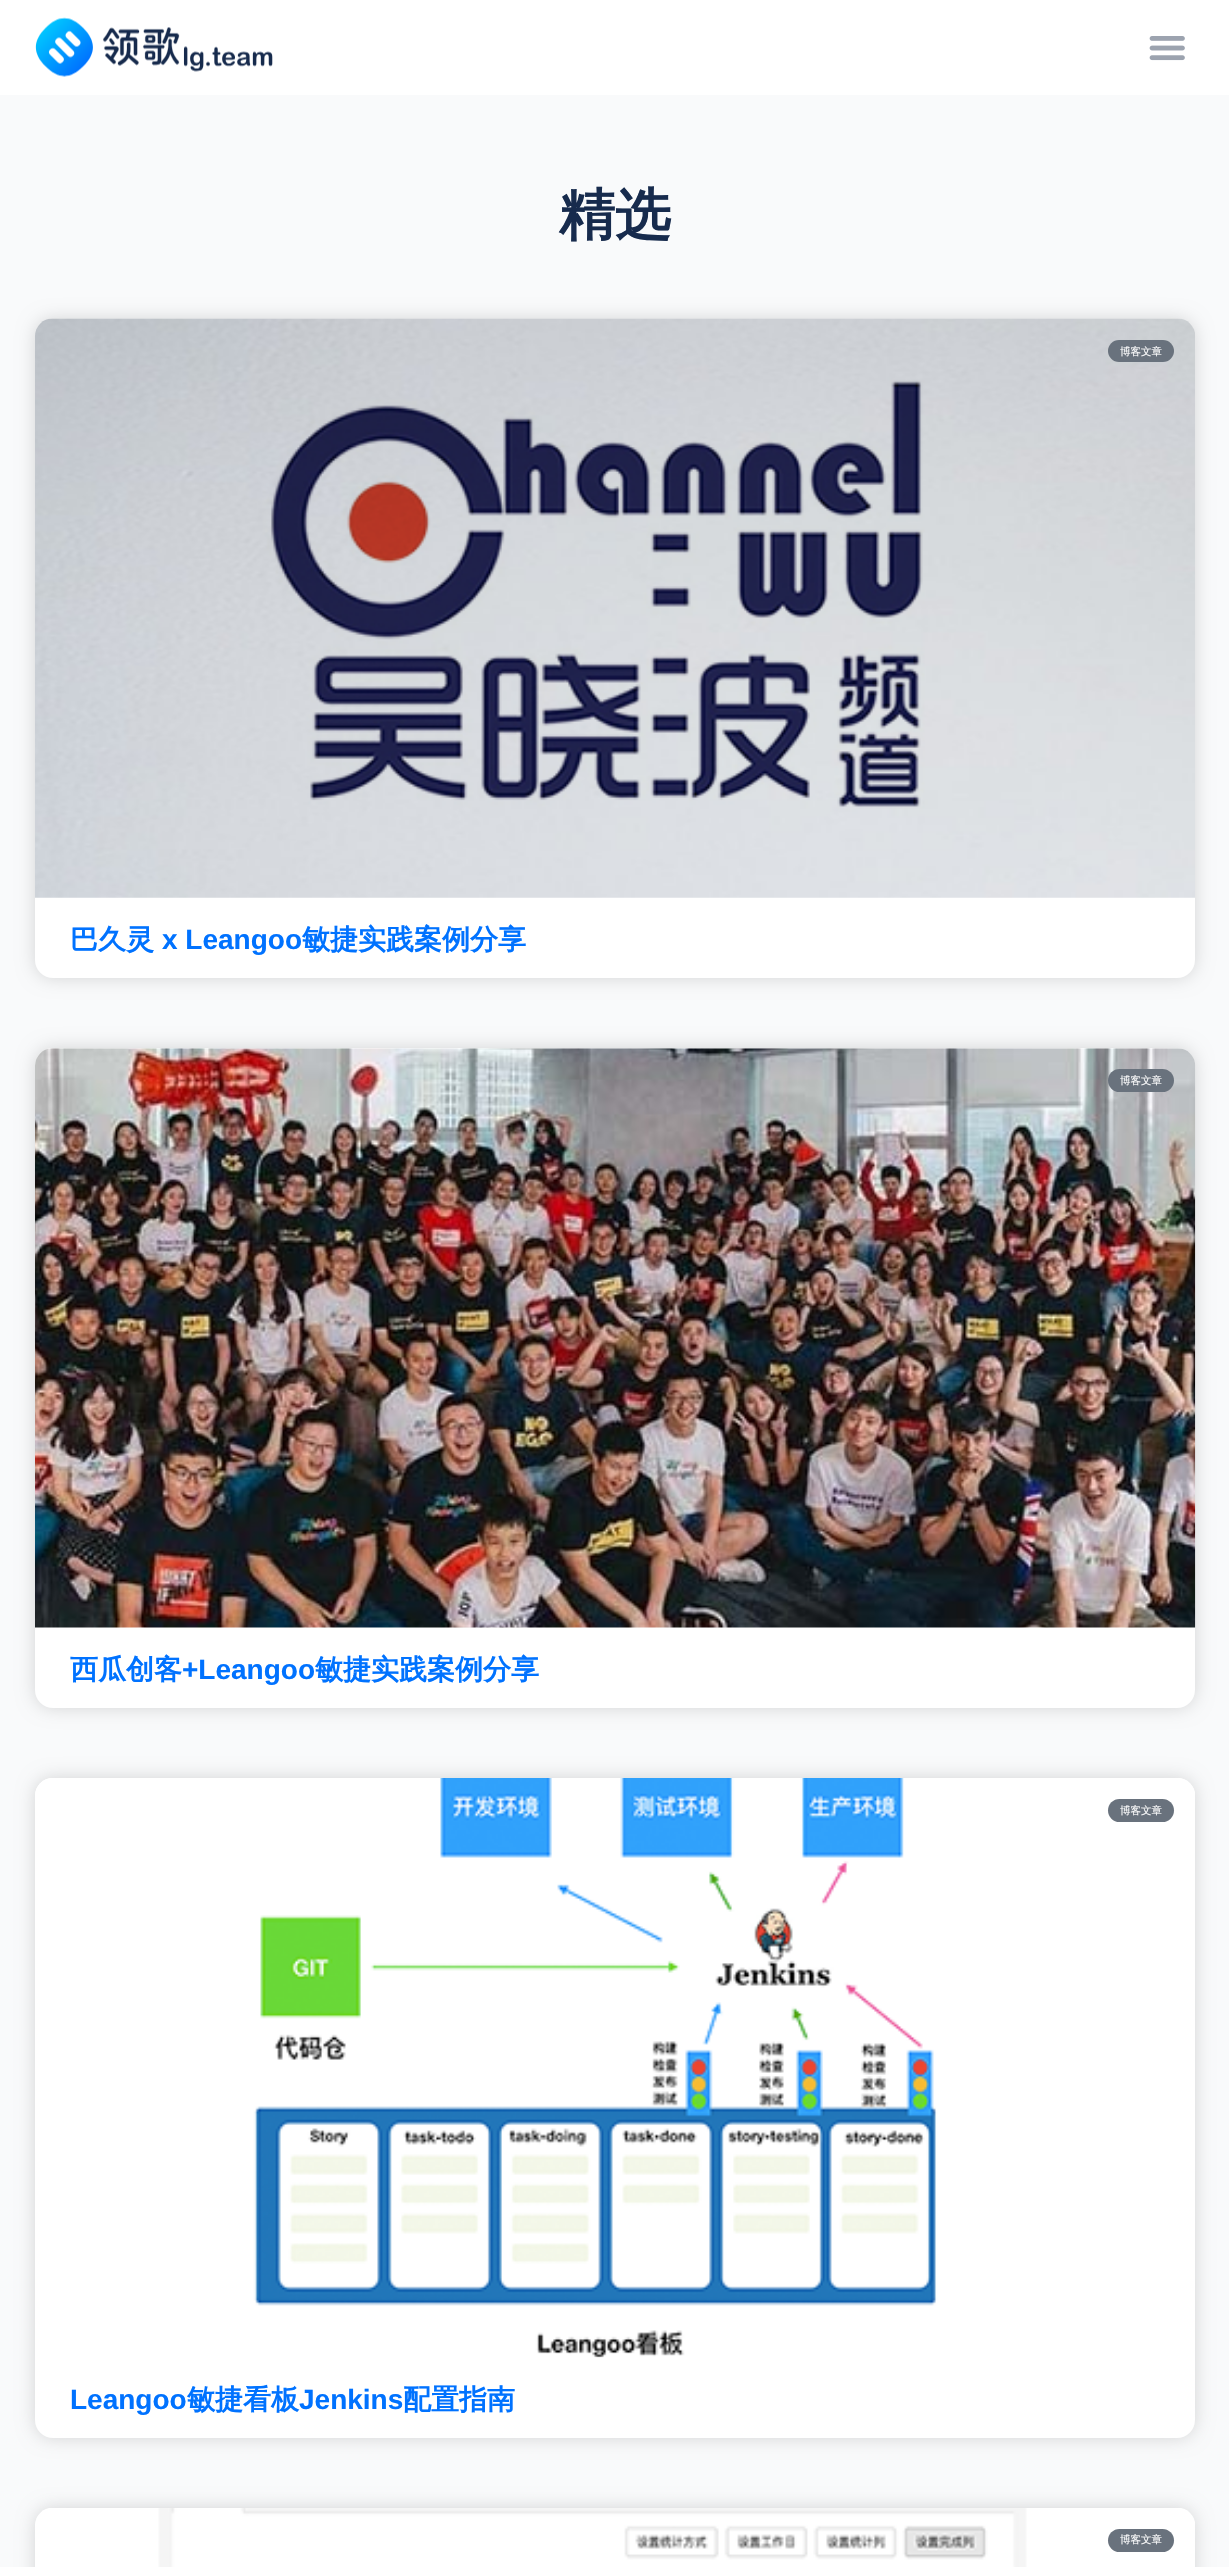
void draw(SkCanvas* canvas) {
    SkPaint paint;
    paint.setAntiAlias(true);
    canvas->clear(0xFFFFFFFF);
    canvas->drawImageRect(SkImages::DeferredFromEncodedData(SkData::MakeFromFileName("img1.png")), SkRect::MakeXYWH(35, 17, 238, 60), SkSamplingOptions());
    canvas->drawImageRect(SkImages::DeferredFromEncodedData(SkData::MakeFromFileName("img2.png")), SkRect::MakeXYWH(1149, 36, 36, 25), SkSamplingOptions());
    paint.setColor(0xFFF9FAFB);
    canvas->drawRect(SkRect::MakeXYWH(0, 95, 1229, 2472), paint);
    SkFont font1(fontMgr->matchFamilyStyle("WenQuanYi Zen Hei", SkFontStyle::Bold()), 56);
    font1.setSubpixel(true);
    paint.setColor(0xFF172B4D);
    canvas->drawString("精选", 559, 234, font1, paint);
    paint.setColor(0x26000000);
    paint.setMaskFilter(SkMaskFilter::MakeBlur(kNormal_SkBlurStyle, 9));
    canvas->drawRoundRect(SkRect::MakeXYWH(35, 319, 1160, 659), 18, 18, paint);
    paint.setMaskFilter(nullptr);
    paint.setColor(0xFFFFFFFF);
    canvas->drawRoundRect(SkRect::MakeXYWH(35, 319, 1160, 659), 18, 18, paint);
    canvas->drawImageRect(SkImages::DeferredFromEncodedData(SkData::MakeFromFileName("img3.png")), SkRect::MakeXYWH(35, 318, 1160, 580), SkSamplingOptions());
    paint.setColor(0xFF69727D);
    canvas->drawRoundRect(SkRect::MakeXYWH(1108, 340, 66, 22), 11, 11, paint);
    SkFont font2(fontMgr->matchFamilyStyle("WenQuanYi Zen Hei", SkFontStyle(500, SkFontStyle::kNormal_Width, SkFontStyle::kUpright_Slant)), 10.5f);
    font2.setSubpixel(true);
    paint.setColor(0xFFFFFFFF);
    canvas->drawString("博客文章", 1120, 355, font2, paint);
    SkFont font3(fontMgr->matchFamilyStyle("WenQuanYi Zen Hei", SkFontStyle::Bold()), 28);
    font3.setSubpixel(true);
    paint.setColor(0xFF0072FF);
    canvas->drawString("巴久灵", 70, 949, font3, paint);
    SkFont font4(fontMgr->matchFamilyStyle("Liberation Sans", SkFontStyle::Bold()), 28);
    font4.setSubpixel(true);
    canvas->drawString("x Leangoo", 162, 949, font4, paint);
    canvas->drawString("敏捷实践案例分享", 302, 949, font3, paint);
    paint.setColor(0x26000000);
    paint.setMaskFilter(SkMaskFilter::MakeBlur(kNormal_SkBlurStyle, 9));
    canvas->drawRoundRect(SkRect::MakeXYWH(35, 1048, 1160, 660), 18, 18, paint);
    paint.setMaskFilter(nullptr);
    paint.setColor(0xFFFFFFFF);
    canvas->drawRoundRect(SkRect::MakeXYWH(35, 1048, 1160, 660), 18, 18, paint);
    canvas->drawImageRect(SkImages::DeferredFromEncodedData(SkData::MakeFromFileName("img4.png")), SkRect::MakeXYWH(35, 1048, 1161, 580), SkSamplingOptions());
    paint.setColor(0xFF69727D);
    canvas->drawRoundRect(SkRect::MakeXYWH(1108, 1069, 66, 23), 11.5f, 11.5f, paint);
    paint.setColor(0xFFFFFFFF);
    canvas->drawString("博客文章", 1120, 1084, font2, paint);
    paint.setColor(0xFF0072FF);
    canvas->drawString("西瓜创客", 70, 1679, font3, paint);
    canvas->drawString("+Leangoo", 182, 1679, font4, paint);
    canvas->drawString("敏捷实践案例分享", 315, 1679, font3, paint);
    paint.setColor(0x26000000);
    paint.setMaskFilter(SkMaskFilter::MakeBlur(kNormal_SkBlurStyle, 9));
    canvas->drawRoundRect(SkRect::MakeXYWH(35, 1778, 1160, 660), 18, 18, paint);
    paint.setMaskFilter(nullptr);
    paint.setColor(0xFFFFFFFF);
    canvas->drawRoundRect(SkRect::MakeXYWH(35, 1778, 1160, 660), 18, 18, paint);
    canvas->drawImageRect(SkImages::DeferredFromEncodedData(SkData::MakeFromFileName("img5.png")), SkRect::MakeXYWH(35, 1778, 1160, 580), SkSamplingOptions());
    paint.setColor(0xFF69727D);
    canvas->drawRoundRect(SkRect::MakeXYWH(1108, 1799, 66, 23), 11.5f, 11.5f, paint);
    paint.setColor(0xFFFFFFFF);
    canvas->drawString("博客文章", 1120, 1814, font2, paint);
    paint.setColor(0xFF0072FF);
    canvas->drawString("Leangoo", 70, 2409, font4, paint);
    canvas->drawString("敏捷看板", 187, 2409, font3, paint);
    canvas->drawString("Jenkins", 299, 2409, font4, paint);
    canvas->drawString("配置指南", 403, 2409, font3, paint);
    paint.setColor(0x26000000);
    paint.setMaskFilter(SkMaskFilter::MakeBlur(kNormal_SkBlurStyle, 9));
    canvas->drawRoundRect(SkRect::MakeXYWH(35, 2508, 1160, 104), 18, 18, paint);
    paint.setMaskFilter(nullptr);
    canvas->drawImageRect(SkImages::DeferredFromEncodedData(SkData::MakeFromFileName("img6.png")), SkRect::MakeXYWH(35, 2508, 1160, 59), SkSamplingOptions());
    paint.setColor(0xFF69727D);
    canvas->drawRoundRect(SkRect::MakeXYWH(1108, 2529, 66, 23), 11.5f, 11.5f, paint);
    paint.setColor(0xFFFFFFFF);
    canvas->drawString("博客文章", 1120, 2543, font2, paint);
}
